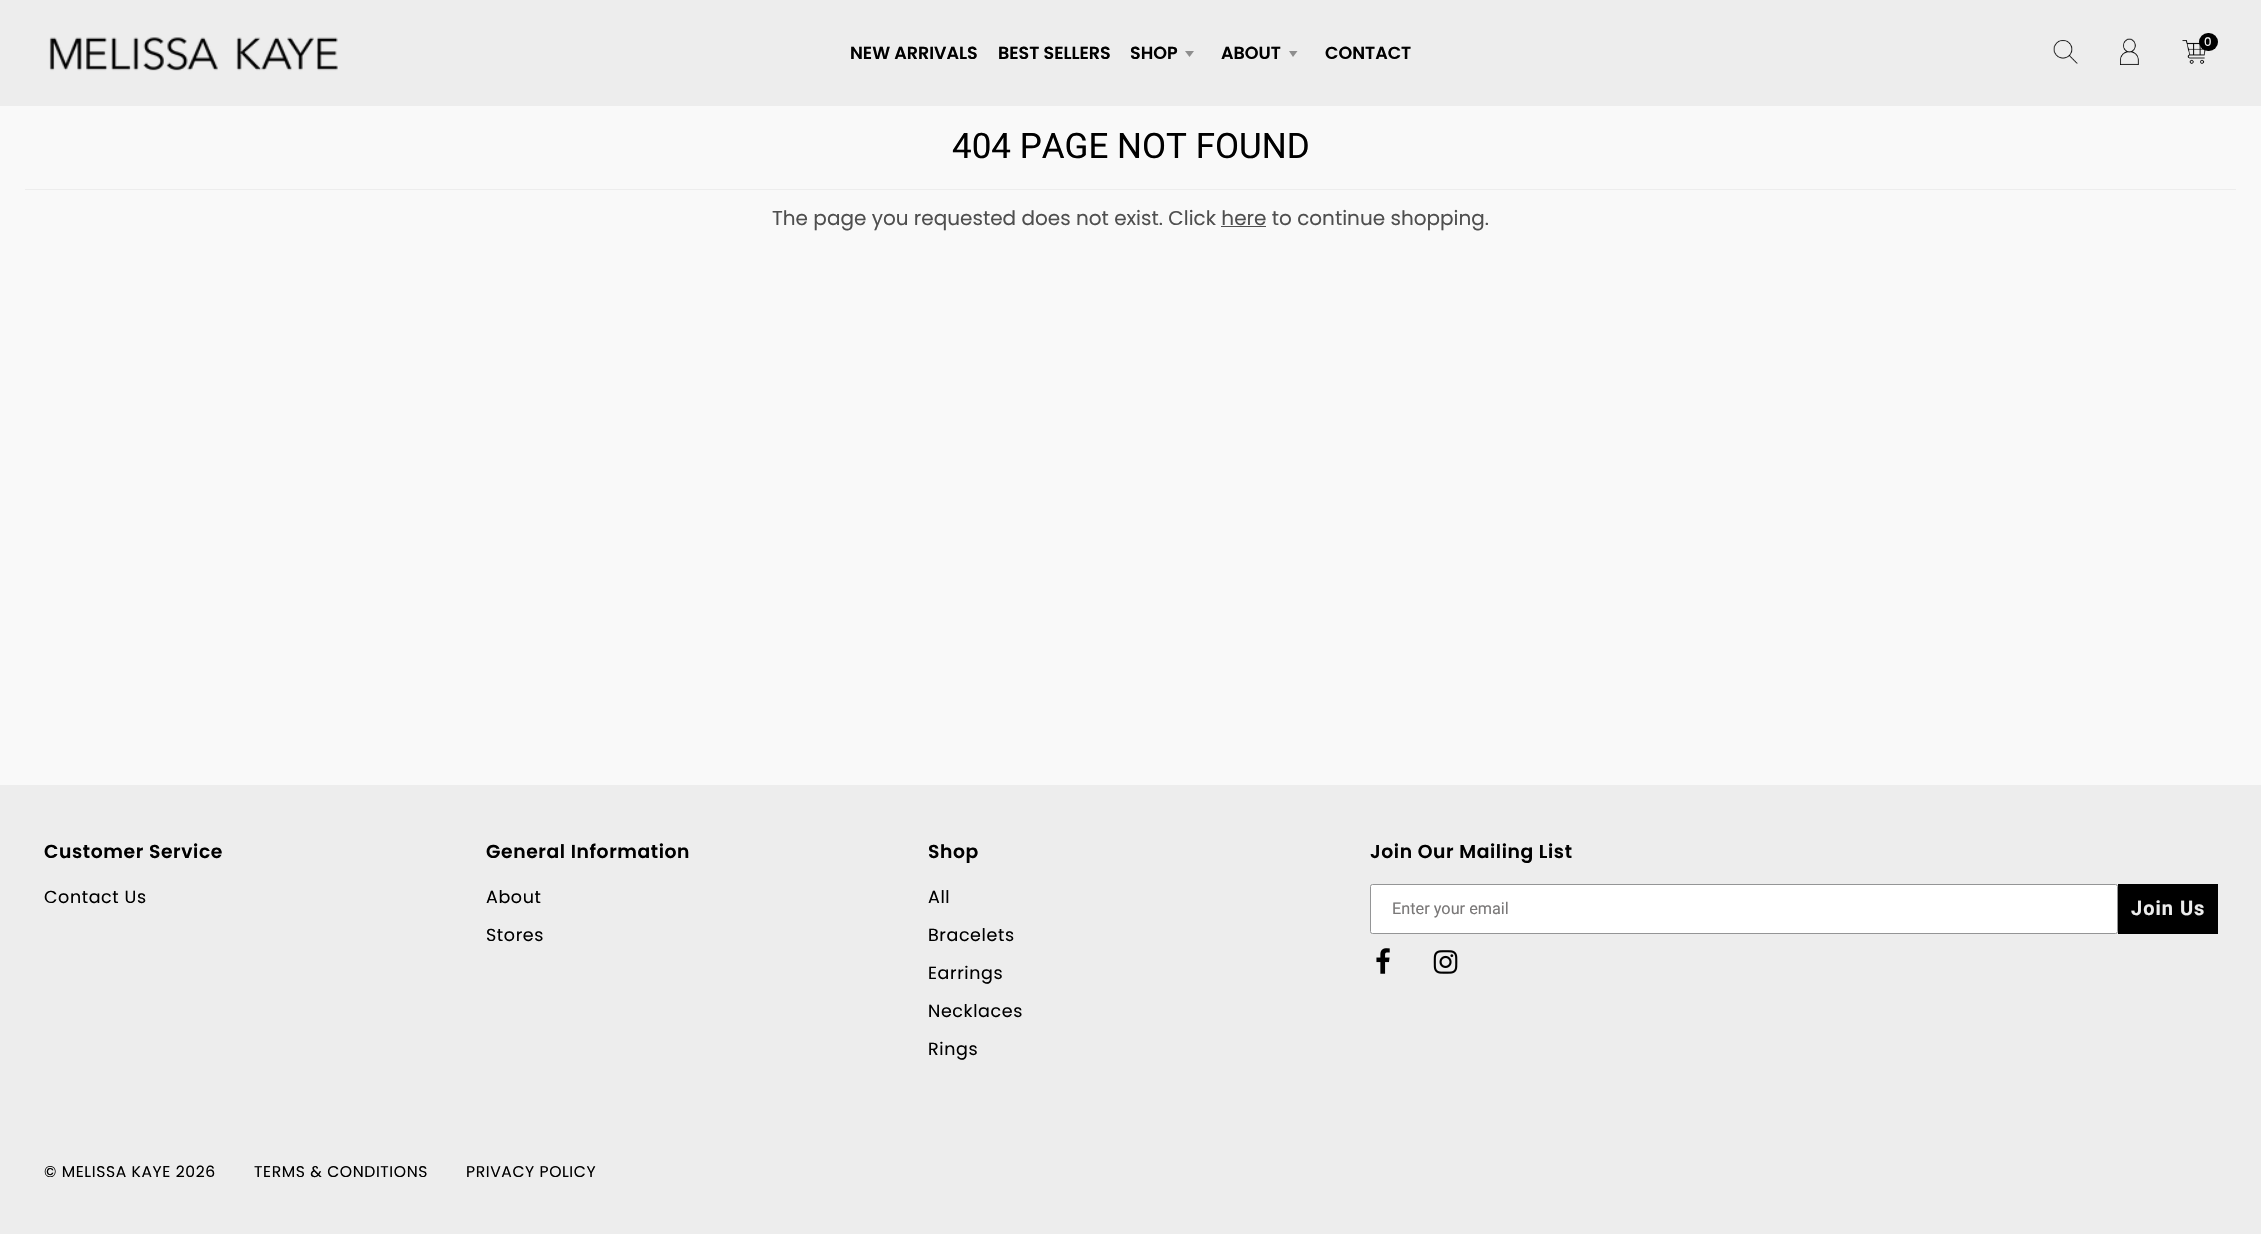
void draw(SkCanvas* canvas) {
    SkPaint paint;
    paint.setAntiAlias(true);
    auto spacedText = [&](const char* s, float x, float y, const SkFont& font, const SkPaint& ink, float letter, float word) {
        std::vector<SkGlyphID> glyphs(font.countText(s, strlen(s), SkTextEncoding::kUTF8));
        std::vector<float> xs(glyphs.size());
        font.textToGlyphs(s, strlen(s), SkTextEncoding::kUTF8, glyphs);
        font.getXPos(glyphs, xs, x);
        float extra = 0;
        for (size_t i = 0; i < glyphs.size(); i++) {
            xs[i] += extra;
            extra += letter + word * (glyphs[i] == font.unicharToGlyph(' '));
        }
        canvas->drawTextBlob(SkTextBlob::MakeFromPosHGlyphs(glyphs, xs, y, font), 0, 0, ink);
    };
    canvas->clear(0xFFF9F9F9);
    paint.setColor(0xFFEDEDED);
    canvas->drawRect(SkRect::MakeXYWH(0, 0, 2261, 106), paint);
    canvas->drawImageRect(SkImages::DeferredFromEncodedData(SkData::MakeFromFileName("img1.png")), SkRect::MakeXYWH(49, 37, 289, 34), SkSamplingOptions());
    SkFont font1(fontMgr->matchFamilyStyle("Poppins", SkFontStyle(600, SkFontStyle::kNormal_Width, SkFontStyle::kUpright_Slant)), 17.5f);
    font1.setSubpixel(true);
    paint.setColor(0xFF000000);
    canvas->drawString("NEW ARRIVALS", 850, 59, font1, paint);
    canvas->drawString("BEST SELLERS", 998, 59, font1, paint);
    canvas->drawString("SHOP", 1130, 59, font1, paint);
    paint.setColor(0xFF8E8E8E);
    canvas->drawPath(SkPathBuilder().moveTo(1185, 51).lineTo(1189.5f, 57).lineTo(1194, 51).close().detach(), paint);
    paint.setColor(0xFF000000);
    canvas->drawString("ABOUT", 1221, 59, font1, paint);
    paint.setColor(0xFF8E8E8E);
    canvas->drawPath(SkPathBuilder().moveTo(1289, 51).lineTo(1293, 57).lineTo(1297.5f, 51).close().detach(), paint);
    paint.setColor(0xFF000000);
    canvas->drawString("CONTACT", 1325, 59, font1, paint);
    canvas->drawImageRect(SkImages::DeferredFromEncodedData(SkData::MakeFromFileName("img2.png")), SkRect::MakeXYWH(2053, 40, 25, 24), SkSamplingOptions());
    canvas->drawImageRect(SkImages::DeferredFromEncodedData(SkData::MakeFromFileName("img3.png")), SkRect::MakeXYWH(2120, 38, 19, 27), SkSamplingOptions());
    canvas->drawImageRect(SkImages::DeferredFromEncodedData(SkData::MakeFromFileName("img4.png")), SkRect::MakeXYWH(2182, 40, 24, 24), SkSamplingOptions());
    canvas->drawRoundRect(SkRect::MakeXYWH(2199, 33, 19, 18), 9, 9, paint);
    SkFont font2(fontMgr->matchFamilyStyle("Poppins", SkFontStyle::Normal()), 12);
    font2.setSubpixel(true);
    paint.setColor(0xFFFFFFFF);
    canvas->drawString("0", 2204, 46, font2, paint);
    paint.setColor(0xFFEDEDED);
    canvas->drawRect(SkRect::MakeXYWH(25, 189, 2211, 1), paint);
    SkFont font3(fontMgr->matchFamilyStyle("Roboto", SkFontStyle::Normal()), 35);
    font3.setSubpixel(true);
    paint.setColor(0xFF000000);
    canvas->drawString("404 PAGE NOT FOUND", 952, 158, font3, paint);
    SkFont font4(fontMgr->matchFamilyStyle("Poppins", SkFontStyle::Normal()), 20);
    font4.setSubpixel(true);
    paint.setColor(0xFF4F4F4F);
    canvas->drawString("The page you requested does not exist. Click here to continue shopping.", 772, 225, font4, paint);
    canvas->drawRect(SkRect::MakeXYWH(1221, 226, 45, 1), paint);
    paint.setColor(0xFFEDEDED);
    canvas->drawRect(SkRect::MakeXYWH(0, 785, 2261, 449), paint);
    SkFont font5(fontMgr->matchFamilyStyle("Poppins", SkFontStyle(600, SkFontStyle::kNormal_Width, SkFontStyle::kUpright_Slant)), 18.75f);
    font5.setSubpixel(true);
    paint.setColor(0xFF000000);
    spacedText("Customer Service", 44, 858, font5, paint, 0.6f, 0);
    SkFont font6(fontMgr->matchFamilyStyle("Poppins", SkFontStyle::Normal()), 17.5f);
    font6.setSubpixel(true);
    spacedText("Contact Us", 44, 903, font6, paint, 0.6f, 0);
    spacedText("General Information", 486, 858, font5, paint, 0.6f, 0);
    spacedText("About", 486, 903, font6, paint, 0.6f, 0);
    spacedText("Stores", 486, 941, font6, paint, 0.6f, 0);
    spacedText("Shop", 928, 858, font5, paint, 0.6f, 0);
    spacedText("All", 928, 903, font6, paint, 0.6f, 0);
    spacedText("Bracelets", 928, 941, font6, paint, 0.6f, 0);
    spacedText("Earrings", 928, 979, font6, paint, 0.6f, 0);
    spacedText("Necklaces", 928, 1017, font6, paint, 0.6f, 0);
    spacedText("Rings", 928, 1055, font6, paint, 0.6f, 0);
    spacedText("Join Our Mailing List", 1370, 858, font5, paint, 0.6f, 0);
    paint.setColor(0xFFFFFFFF);
    canvas->drawRoundRect(SkRect::MakeXYWH(1370.5f, 884.5f, 747, 49), 2, 2, paint);
    paint.setStyle(SkPaint::kStroke_Style);
    paint.setStrokeWidth(1);
    paint.setColor(0xFF949596);
    canvas->drawRoundRect(SkRect::MakeXYWH(1370.5f, 884.5f, 747, 49), 2, 2, paint);
    SkFont font7(fontMgr->matchFamilyStyle("Roboto", SkFontStyle::Normal()), 16.25f);
    font7.setSubpixel(true);
    paint.setStyle(SkPaint::kFill_Style);
    paint.setColor(0xFF7A7878);
    canvas->drawString("Enter your email", 1392, 914, font7, paint);
    paint.setColor(0xFF000000);
    canvas->drawRect(SkRect::MakeXYWH(2118, 884, 100, 50), paint);
    SkFont font8(fontMgr->matchFamilyStyle("Roboto", SkFontStyle::Bold()), 20);
    font8.setSubpixel(true);
    paint.setColor(0xFFEDEDED);
    spacedText("Join Us", 2131, 915, font8, paint, 1, 0);
    canvas->drawImageRect(SkImages::DeferredFromEncodedData(SkData::MakeFromFileName("img5.png")), SkRect::MakeXYWH(1376, 948, 14, 26), SkSamplingOptions());
    canvas->drawImageRect(SkImages::DeferredFromEncodedData(SkData::MakeFromFileName("img6.png")), SkRect::MakeXYWH(1433, 950, 25, 24), SkSamplingOptions());
    SkFont font9(fontMgr->matchFamilyStyle("Poppins", SkFontStyle::Normal()), 15.6f);
    font9.setSubpixel(true);
    paint.setColor(0xFF000000);
    spacedText("© MELISSA KAYE 2026", 44, 1177, font9, paint, 0.6f, 0);
    spacedText("TERMS & CONDITIONS", 254, 1177, font9, paint, 0.6f, 0);
    spacedText("PRIVACY POLICY", 466, 1177, font9, paint, 0.6f, 0);
}
